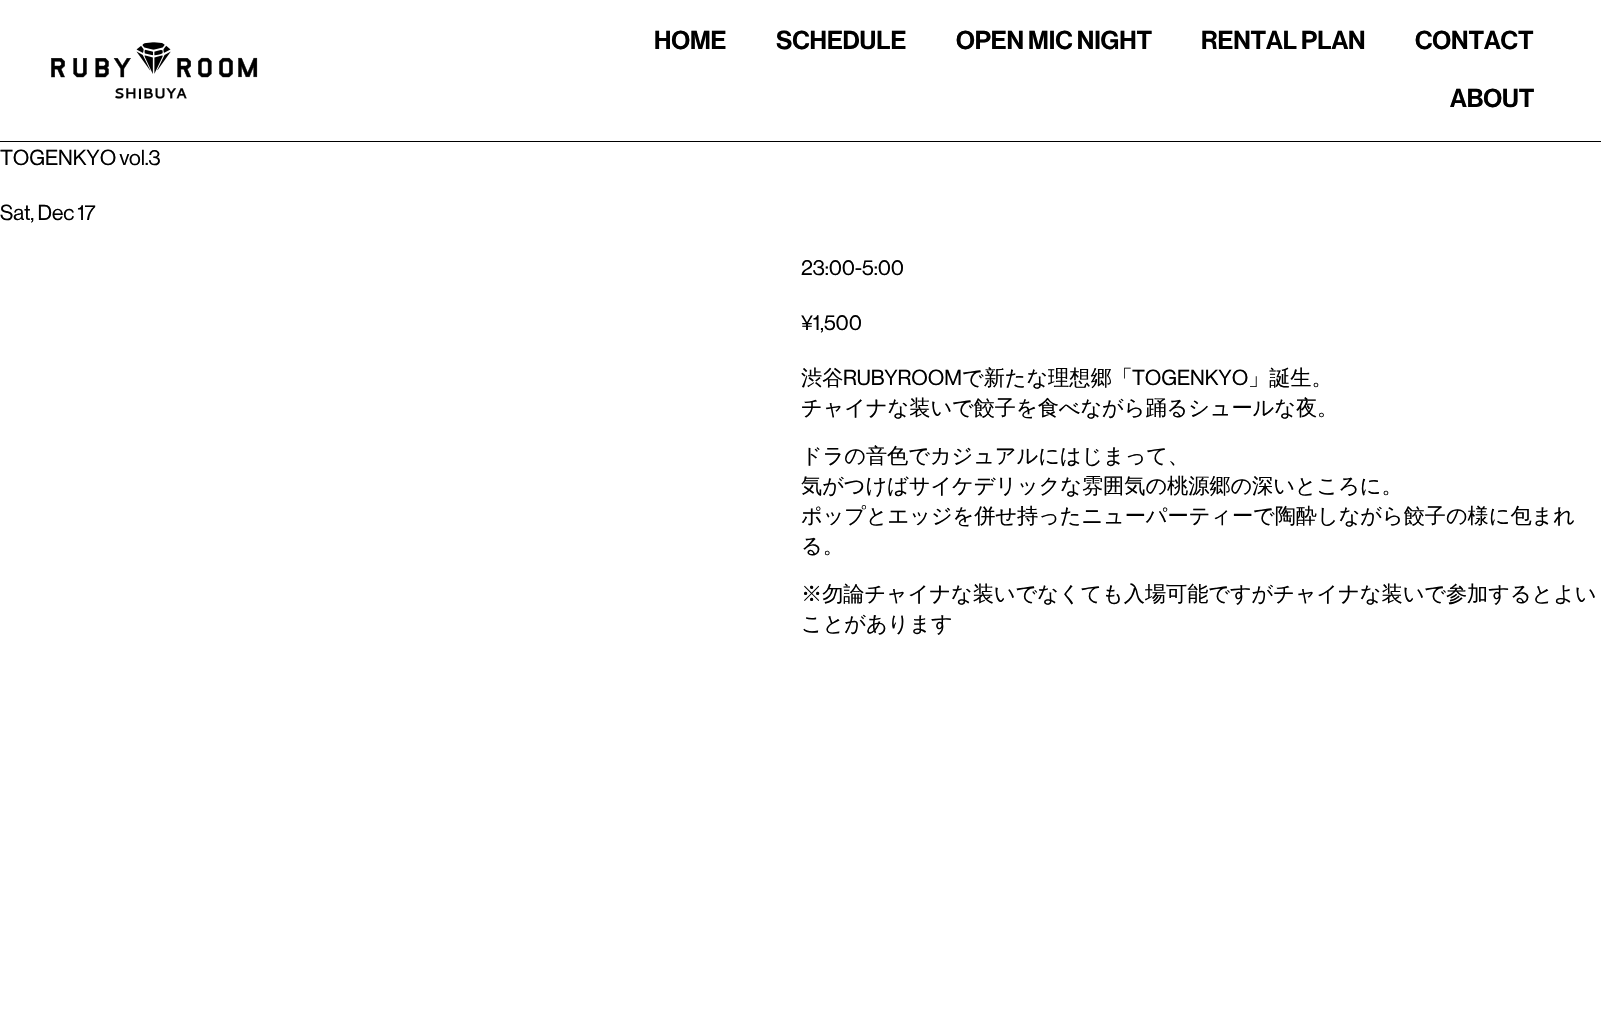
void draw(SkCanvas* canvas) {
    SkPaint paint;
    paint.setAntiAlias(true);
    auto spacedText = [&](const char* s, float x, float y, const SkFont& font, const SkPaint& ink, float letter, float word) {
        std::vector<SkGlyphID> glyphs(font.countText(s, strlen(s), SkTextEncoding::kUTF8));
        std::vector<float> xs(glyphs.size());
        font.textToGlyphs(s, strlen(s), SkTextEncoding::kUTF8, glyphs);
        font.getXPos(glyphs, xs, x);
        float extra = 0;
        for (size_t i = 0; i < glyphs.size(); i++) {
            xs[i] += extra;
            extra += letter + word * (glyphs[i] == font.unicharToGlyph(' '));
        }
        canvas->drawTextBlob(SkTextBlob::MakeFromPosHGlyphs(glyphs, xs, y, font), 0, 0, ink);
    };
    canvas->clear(0xFFFFFFFF);
    paint.setColor(0xFF000000);
    canvas->drawRect(SkRect::MakeXYWH(0, 141, 1601, 1), paint);
    canvas->drawImageRect(SkImages::DeferredFromEncodedData(SkData::MakeFromFileName("img1.png")), SkRect::MakeXYWH(51, 42, 207, 57), SkSamplingOptions());
    SkFont font1(fontMgr->matchFamilyStyle("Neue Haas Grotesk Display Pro", SkFontStyle(600, SkFontStyle::kNormal_Width, SkFontStyle::kUpright_Slant)), 25.5f);
    font1.setSubpixel(true);
    spacedText("HOME", 654, 49, font1, paint, -0.1f, 0);
    spacedText("SCHEDULE", 776, 49, font1, paint, -0.1f, 0);
    spacedText("OPEN MIC NIGHT", 956, 49, font1, paint, -0.1f, 0);
    spacedText("RENTAL PLAN", 1201, 49, font1, paint, -0.1f, 0);
    spacedText("CONTACT", 1415, 49, font1, paint, -0.1f, 0);
    spacedText("ABOUT", 1450, 107, font1, paint, -0.1f, 0);
    SkFont font2(fontMgr->matchFamilyStyle("Neue Haas Grotesk Display Pro", SkFontStyle::Normal()), 21.25f);
    font2.setSubpixel(true);
    spacedText("TOGENKYO vol.3", 0, 165, font2, paint, -0.1f, 0);
    spacedText("Sat, Dec 17", 0, 220, font2, paint, -0.1f, 0);
    spacedText("23:00-5:00", 801, 275, font2, paint, -0.1f, 0);
    spacedText("¥1,500", 801, 330, font2, paint, -0.1f, 0);
    SkFont font3(fontMgr->matchFamilyStyle("WenQuanYi Zen Hei", SkFontStyle(500, SkFontStyle::kNormal_Width, SkFontStyle::kUpright_Slant)), 21.25f);
    font3.setSubpixel(true);
    spacedText("渋谷", 801, 385, font3, paint, -0.1f, 0);
    spacedText("RUBYROOM", 843, 385, font2, paint, -0.1f, 0);
    spacedText("で新たな理想郷「", 962, 385, font3, paint, -0.1f, 0);
    spacedText("TOGENKYO", 1132, 385, font2, paint, -0.1f, 0);
    spacedText("」誕生。", 1248, 385, font3, paint, -0.1f, 0);
    spacedText("チャイナな装いで餃子を食べながら踊るシュールな夜。", 801, 415, font3, paint, -0.1f, 0);
    spacedText("ドラの音色でカジュアルにはじまって、", 801, 463, font3, paint, -0.1f, 0);
    spacedText("気がつけばサイケデリックな雰囲気の桃源郷の深いところに。", 801, 493, font3, paint, -0.1f, 0);
    spacedText("ポップとエッジを併せ持ったニューパーティーで陶酔しながら餃子の様に包まれ", 801, 523, font3, paint, -0.1f, 0);
    spacedText("る。", 801, 553, font3, paint, -0.1f, 0);
    spacedText("※勿論チャイナな装いでなくても入場可能ですがチャイナな装いで参加するとよい", 801, 601, font3, paint, -0.1f, 0);
    spacedText("ことがあります", 801, 631, font3, paint, -0.1f, 0);
}
